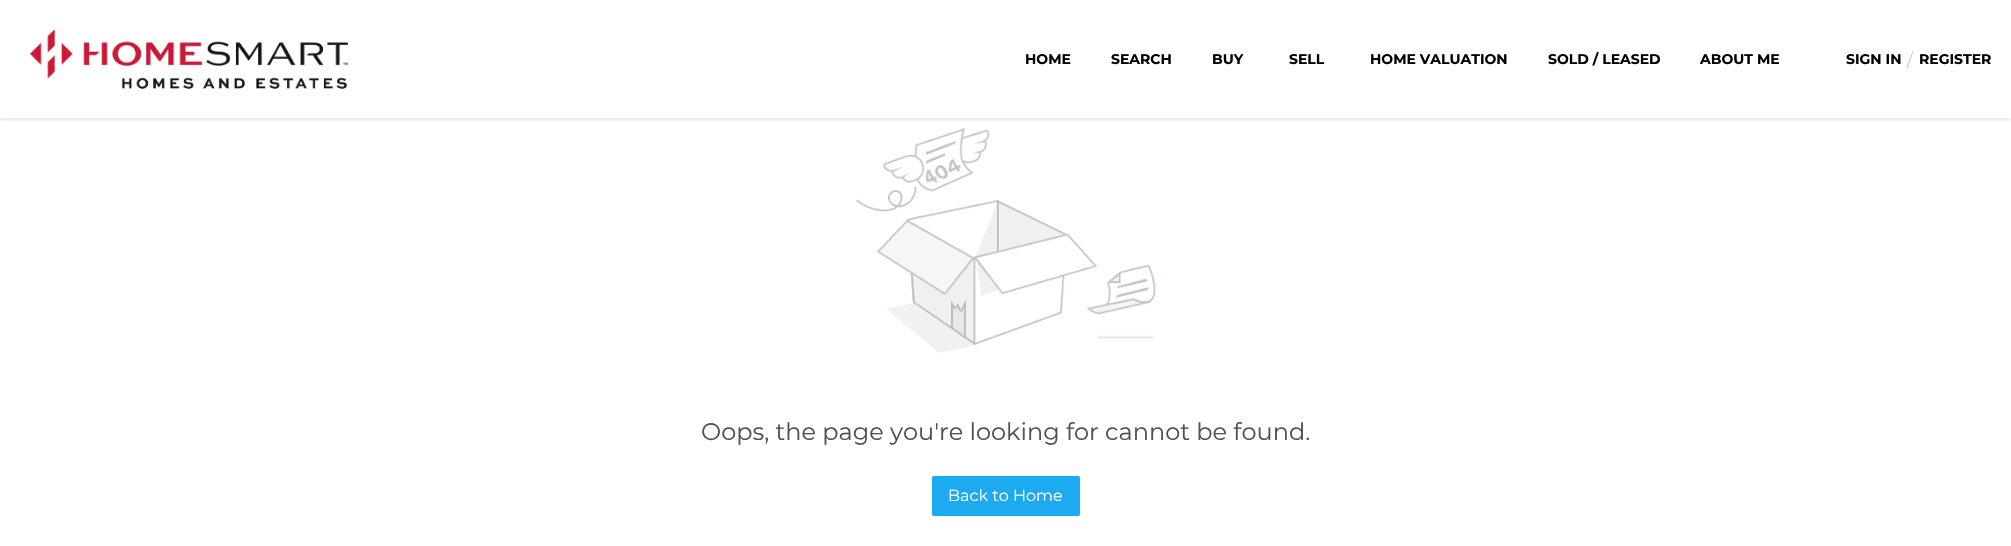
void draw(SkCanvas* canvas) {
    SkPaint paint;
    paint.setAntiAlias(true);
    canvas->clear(0xFFFFFFFF);
    canvas->save();
    canvas->clipRect(SkRect::MakeXYWH(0, 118, 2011, 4));
    paint.setColor(0x1A000000);
    paint.setMaskFilter(SkMaskFilter::MakeBlur(kNormal_SkBlurStyle, 2));
    canvas->drawRect(SkRect::MakeXYWH(0, 2, 2011, 118), paint);
    paint.setMaskFilter(nullptr);
    canvas->restore();
    canvas->drawImageRect(SkImages::DeferredFromEncodedData(SkData::MakeFromFileName("img1.png")), SkRect::MakeXYWH(30, 29, 318, 60), SkSamplingOptions());
    SkFont font1(fontMgr->matchFamilyStyle("Montserrat", SkFontStyle::Bold()), 14);
    font1.setSubpixel(true);
    paint.setColor(0xFF000000);
    canvas->drawString("HOME", 1025, 64, font1, paint);
    canvas->drawString("SEARCH", 1111, 64, font1, paint);
    canvas->drawString("BUY", 1212, 64, font1, paint);
    canvas->drawString("SELL", 1289, 64, font1, paint);
    canvas->drawString("HOME VALUATION", 1370, 64, font1, paint);
    canvas->drawString("SOLD / LEASED", 1548, 64, font1, paint);
    canvas->drawString("ABOUT ME", 1700, 64, font1, paint);
    canvas->drawString("SIGN IN", 1846, 64, font1, paint);
    paint.setColor(0xFFBFBFBF);
    canvas->drawPath(SkPathBuilder().moveTo(1913, 50.5f).lineTo(1913.5f, 51).lineTo(1907.5f, 68).lineTo(1906.5f, 67.5f).close().detach(), paint);
    paint.setColor(0xFF000000);
    canvas->drawString("REGISTER", 1919, 64, font1, paint);
    canvas->drawImageRect(SkImages::DeferredFromEncodedData(SkData::MakeFromFileName("img2.png")), SkRect::MakeXYWH(856, 128, 300, 225), SkSamplingOptions());
    SkFont font2(fontMgr->matchFamilyStyle("Montserrat", SkFontStyle::Normal()), 24);
    font2.setSubpixel(true);
    paint.setColor(0xFF505050);
    canvas->drawString("Oops, the page you're looking for cannot be found.", 701, 440, font2, paint);
    paint.setColor(0xFF1DAAF0);
    canvas->drawRoundRect(SkRect::MakeXYWH(932, 476, 148, 40), 2, 2, paint);
    SkFont font3(fontMgr->matchFamilyStyle("Montserrat", SkFontStyle::Normal()), 16);
    font3.setSubpixel(true);
    paint.setColor(0xFFFFFFFF);
    canvas->drawString("Back to Home", 948, 501, font3, paint);
}
